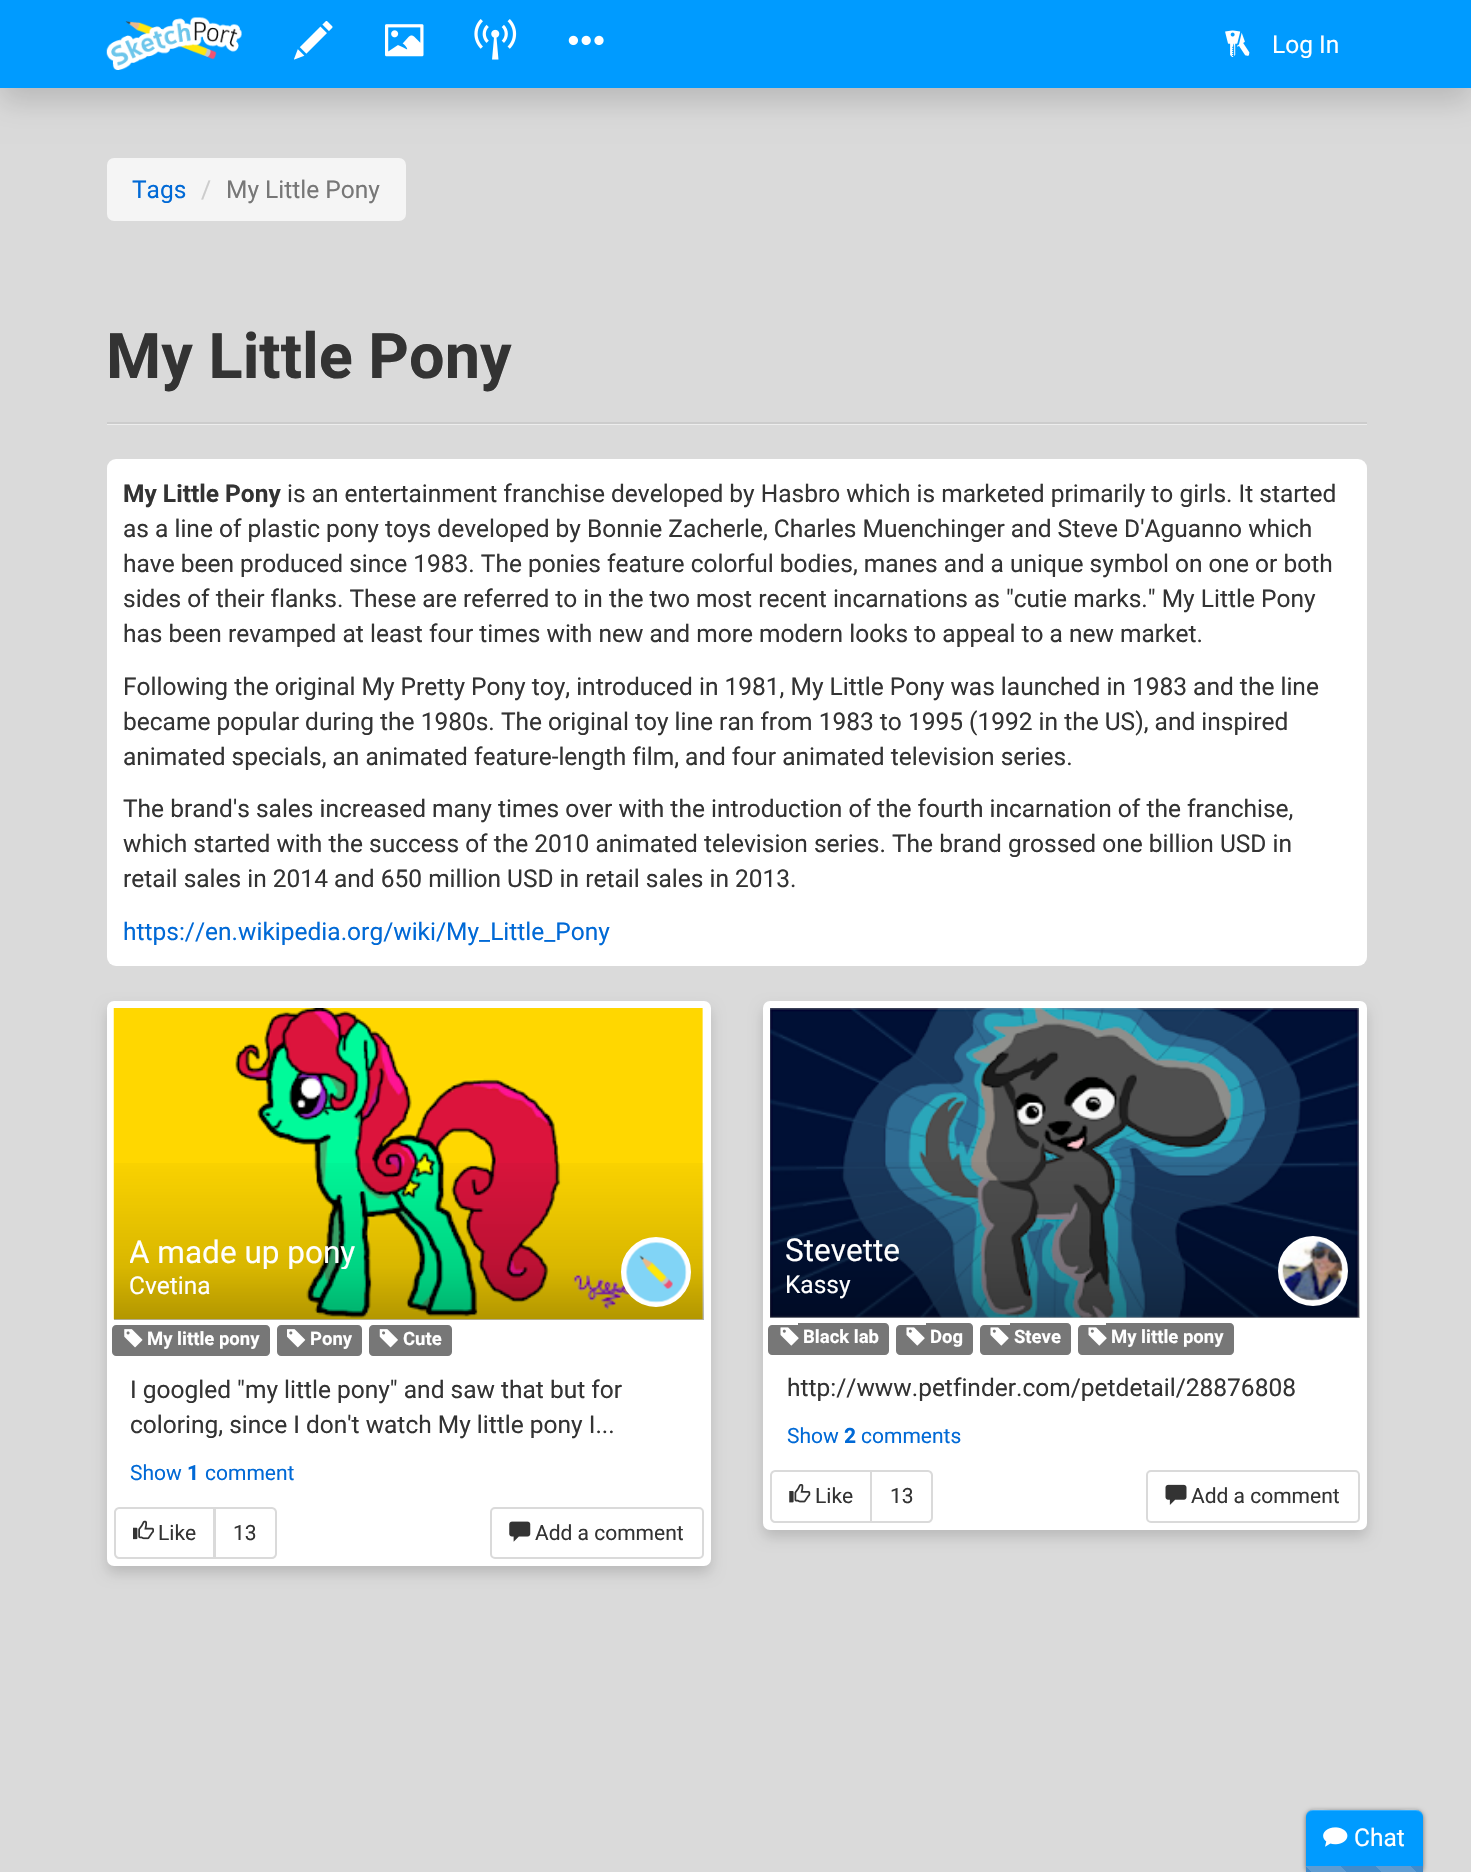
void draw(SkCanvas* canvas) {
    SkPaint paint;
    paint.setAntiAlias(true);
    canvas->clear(0xFFDADADA);
    paint.setColor(0x26000000);
    paint.setMaskFilter(SkMaskFilter::MakeBlur(kNormal_SkBlurStyle, 14));
    canvas->drawRect(SkRect::MakeXYWH(0, 14, 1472, 88), paint);
    paint.setMaskFilter(nullptr);
    paint.setColor(0xFF009BFF);
    canvas->drawRect(SkRect::MakeXYWH(0, 0, 1471, 88), paint);
    canvas->drawImageRect(SkImages::DeferredFromEncodedData(SkData::MakeFromFileName("img1.png")), SkRect::MakeXYWH(106, 17, 136, 53), SkSamplingOptions());
    canvas->drawImageRect(SkImages::DeferredFromEncodedData(SkData::MakeFromFileName("img2.png")), SkRect::MakeXYWH(294, 21, 39, 39), SkSamplingOptions());
    canvas->drawImageRect(SkImages::DeferredFromEncodedData(SkData::MakeFromFileName("img3.png")), SkRect::MakeXYWH(385, 24, 39, 33), SkSamplingOptions());
    canvas->drawImageRect(SkImages::DeferredFromEncodedData(SkData::MakeFromFileName("img4.png")), SkRect::MakeXYWH(474, 19, 43, 41), SkSamplingOptions());
    canvas->drawImageRect(SkImages::DeferredFromEncodedData(SkData::MakeFromFileName("img5.png")), SkRect::MakeXYWH(568, 35, 36, 11), SkSamplingOptions());
    canvas->drawImageRect(SkImages::DeferredFromEncodedData(SkData::MakeFromFileName("img6.png")), SkRect::MakeXYWH(1225, 30, 25, 27), SkSamplingOptions());
    SkFont font1(fontMgr->matchFamilyStyle("Roboto", SkFontStyle::Normal()), 24.5f);
    font1.setSubpixel(true);
    paint.setColor(0xFFFFFFFF);
    canvas->drawString("Log In", 1272, 53, font1, paint);
    paint.setColor(0xFFF5F5F5);
    canvas->drawRoundRect(SkRect::MakeXYWH(107, 158, 299, 63), 7, 7, paint);
    paint.setColor(0xFF0069D6);
    canvas->drawString("Tags", 132, 198, font1, paint);
    paint.setColor(0xFFCCCCCC);
    canvas->drawString("/", 201, 198, font1, paint);
    paint.setColor(0xFF777777);
    canvas->drawString("My Little Pony", 226, 198, font1, paint);
    paint.setColor(0xFFEDEDED);
    canvas->drawPath(SkPathBuilder().moveTo(107, 424).lineTo(107, 425).lineTo(1367, 425).lineTo(1367, 292).lineTo(1367, 424).close().detach(), paint);
    paint.setColor(0xFFCCCCCC);
    canvas->drawRect(SkRect::MakeXYWH(107, 422, 1260, 2), paint);
    SkFont font2(fontMgr->matchFamilyStyle("Roboto", SkFontStyle::Bold()), 63);
    font2.setSubpixel(true);
    paint.setColor(0xFF333333);
    canvas->drawString("My Little Pony", 106, 378, font2, paint);
    paint.setColor(0xFFFFFFFF);
    canvas->drawRoundRect(SkRect::MakeXYWH(107, 459, 1260, 507), 9, 9, paint);
    SkFont font3(fontMgr->matchFamilyStyle("Roboto", SkFontStyle::Bold()), 24.5f);
    font3.setSubpixel(true);
    paint.setColor(0xFF333333);
    canvas->drawString("My Little Pony", 123, 502, font3, paint);
    canvas->drawString("is an entertainment franchise developed by Hasbro which is marketed primarily to girls. It started", 287, 502, font1, paint);
    canvas->drawString("as a line of plastic pony toys developed by Bonnie Zacherle, Charles Muenchinger and Steve D'Aguanno which", 123, 537, font1, paint);
    canvas->drawString("have been produced since 1983. The ponies feature colorful bodies, manes and a unique symbol on one or both", 123, 572, font1, paint);
    canvas->drawString("sides of their flanks. These are referred to in the two most recent incarnations as \"cutie marks.\" My Little Pony", 123, 607, font1, paint);
    canvas->drawString("has been revamped at least four times with new and more modern looks to appeal to a new market.", 123, 642, font1, paint);
    canvas->drawString("Following the original My Pretty Pony toy, introduced in 1981, My Little Pony was launched in 1983 and the line", 123, 695, font1, paint);
    canvas->drawString("became popular during the 1980s. The original toy line ran from 1983 to 1995 (1992 in the US), and inspired", 123, 730, font1, paint);
    canvas->drawString("animated specials, an animated feature-length film, and four animated television series.", 123, 765, font1, paint);
    canvas->drawString("The brand's sales increased many times over with the introduction of the fourth incarnation of the franchise,", 123, 817, font1, paint);
    canvas->drawString("which started with the success of the 2010 animated television series. The brand grossed one billion USD in", 123, 852, font1, paint);
    canvas->drawString("retail sales in 2014 and 650 million USD in retail sales in 2013.", 123, 887, font1, paint);
    paint.setColor(0xFF0069D6);
    canvas->drawString("https://en.wikipedia.org/wiki/My_Little_Pony", 123, 940, font1, paint);
    paint.setColor(0x26000000);
    paint.setMaskFilter(SkMaskFilter::MakeBlur(kNormal_SkBlurStyle, 7));
    canvas->drawRoundRect(SkRect::MakeXYWH(107, 1008, 604, 565), 7, 7, paint);
    paint.setMaskFilter(nullptr);
    paint.setColor(0xFFFFFFFF);
    canvas->drawRoundRect(SkRect::MakeXYWH(107, 1001, 604, 565), 7, 7, paint);
    canvas->drawImageRect(SkImages::DeferredFromEncodedData(SkData::MakeFromFileName("img7.png")), SkRect::MakeXYWH(113, 1008, 590, 312), SkSamplingOptions());
    {
        const SkColor colors[] = {0x4D000000, 0x26000000, 0x00000000, 0x00000000};
        const float stops[] = {0, 0.17f, 0.56f, 1};
        const SkPoint ends[] = {{409, 1320}, {409, 1008}};
        paint.setShader(SkGradientShader::MakeLinear(ends, colors, stops, 4, SkTileMode::kClamp));
        paint.setAlpha(255);
    }
    canvas->drawRect(SkRect::MakeXYWH(114, 1163, 590, 157), paint);
    canvas->save();
    canvas->clipRect(SkRect::MakeXYWH(130, 1237, 488, 32));
    SkFont font4(fontMgr->matchFamilyStyle("Roboto", SkFontStyle::Normal()), 31.5f);
    font4.setSubpixel(true);
    paint.setShader(nullptr);
    paint.setColor(0xFFFFFFFF);
    canvas->drawString("A made up pony", 129, 1263, font4, paint);
    canvas->restore();
    canvas->drawCircle(656, 1272, 34, paint);
    paint.setStyle(SkPaint::kStroke_Style);
    paint.setStrokeWidth(2);
    canvas->drawCircle(656, 1272, 34, paint);
    canvas->drawImageRect(SkImages::DeferredFromEncodedData(SkData::MakeFromFileName("img8.png")), SkRect::MakeXYWH(626, 1242, 61, 61), SkSamplingOptions());
    paint.setStyle(SkPaint::kFill_Style);
    canvas->drawString("Cvetina", 129, 1294, font1, paint);
    paint.setColor(0xFF777777);
    canvas->drawPath(SkPathBuilder().moveTo(116, 1325).lineTo(142, 1325).lineTo(142, 1356).lineTo(116, 1356).cubicTo(114, 1356, 112, 1354, 112, 1352).lineTo(112, 1329).cubicTo(112, 1327, 114, 1325, 116, 1325).close().detach(), paint);
    canvas->drawPath(SkPathBuilder().moveTo(142, 1325).lineTo(266, 1325).cubicTo(268, 1325, 270, 1327, 270, 1329).lineTo(270, 1352).cubicTo(270, 1354, 268, 1356, 266, 1356).lineTo(142, 1356).close().detach(), paint);
    canvas->drawImageRect(SkImages::DeferredFromEncodedData(SkData::MakeFromFileName("img9.png")), SkRect::MakeXYWH(124, 1329, 19, 19), SkSamplingOptions());
    SkFont font5(fontMgr->matchFamilyStyle("Roboto", SkFontStyle::Bold()), 18.5f);
    font5.setSubpixel(true);
    paint.setColor(0xFFFFFFFF);
    canvas->drawString("My little pony", 147, 1345, font5, paint);
    paint.setColor(0xFF777777);
    canvas->drawPath(SkPathBuilder().moveTo(281, 1325).lineTo(305, 1325).lineTo(305, 1356).lineTo(281, 1356).cubicTo(279, 1356, 277, 1354, 277, 1352).lineTo(277, 1329).cubicTo(277, 1327, 279, 1325, 281, 1325).close().detach(), paint);
    canvas->drawPath(SkPathBuilder().moveTo(305, 1325).lineTo(358, 1325).cubicTo(360, 1325, 362, 1327, 362, 1329).lineTo(362, 1352).cubicTo(362, 1354, 360, 1356, 358, 1356).lineTo(305, 1356).close().detach(), paint);
    canvas->drawImageRect(SkImages::DeferredFromEncodedData(SkData::MakeFromFileName("img10.png")), SkRect::MakeXYWH(287, 1329, 19, 19), SkSamplingOptions());
    paint.setColor(0xFFFFFFFF);
    canvas->drawString("Pony", 310, 1345, font5, paint);
    paint.setColor(0xFF777777);
    canvas->drawPath(SkPathBuilder().moveTo(373, 1325).lineTo(397, 1325).lineTo(397, 1356).lineTo(373, 1356).cubicTo(371, 1356, 369, 1354, 369, 1352).lineTo(369, 1329).cubicTo(369, 1327, 371, 1325, 373, 1325).close().detach(), paint);
    canvas->drawPath(SkPathBuilder().moveTo(397, 1325).lineTo(448, 1325).cubicTo(450, 1325, 452, 1327, 452, 1329).lineTo(452, 1352).cubicTo(452, 1354, 450, 1356, 448, 1356).lineTo(397, 1356).close().detach(), paint);
    canvas->drawImageRect(SkImages::DeferredFromEncodedData(SkData::MakeFromFileName("img11.png")), SkRect::MakeXYWH(379, 1329, 19, 19), SkSamplingOptions());
    paint.setColor(0xFFFFFFFF);
    canvas->drawString("Cute", 403, 1345, font5, paint);
    paint.setColor(0xFF333333);
    canvas->drawString("I googled \"my little pony\" and saw that but for", 130, 1398, font1, paint);
    canvas->drawString("coloring, since I don't watch My little pony I...", 130, 1433, font1, paint);
    SkFont font6(fontMgr->matchFamilyStyle("Roboto", SkFontStyle::Normal()), 21);
    font6.setSubpixel(true);
    paint.setColor(0xFF0069D6);
    canvas->drawString("Show", 130, 1480, font6, paint);
    SkFont font7(fontMgr->matchFamilyStyle("Roboto", SkFontStyle::Bold()), 21);
    font7.setSubpixel(true);
    canvas->drawString("1", 187, 1480, font7, paint);
    canvas->drawString("comment", 205, 1480, font6, paint);
    paint.setStyle(SkPaint::kStroke_Style);
    paint.setColor(0xFFDADADA);
    canvas->drawRoundRect(SkRect::MakeXYWH(491, 1508, 212, 50), 4, 4, paint);
    canvas->drawImageRect(SkImages::DeferredFromEncodedData(SkData::MakeFromFileName("img12.png")), SkRect::MakeXYWH(509, 1521, 22, 21), SkSamplingOptions());
    paint.setStyle(SkPaint::kFill_Style);
    paint.setColor(0xFF333333);
    canvas->drawString("Add a comment", 535, 1540, font6, paint);
    paint.setStyle(SkPaint::kStroke_Style);
    paint.setColor(0xFFDADADA);
    canvas->drawPath(SkPathBuilder().moveTo(119, 1508).lineTo(214, 1508).lineTo(214, 1558).lineTo(119, 1558).cubicTo(117, 1558, 115, 1556, 115, 1554).lineTo(115, 1512).cubicTo(115, 1510, 117, 1508, 119, 1508).close().detach(), paint);
    canvas->drawImageRect(SkImages::DeferredFromEncodedData(SkData::MakeFromFileName("img13.png")), SkRect::MakeXYWH(133, 1520, 21, 20), SkSamplingOptions());
    paint.setStyle(SkPaint::kFill_Style);
    paint.setColor(0xFF333333);
    canvas->drawString("Like", 158, 1540, font6, paint);
    paint.setStyle(SkPaint::kStroke_Style);
    paint.setColor(0xFFDADADA);
    canvas->drawPath(SkPathBuilder().moveTo(215, 1508).lineTo(272, 1508).cubicTo(274, 1508, 276, 1510, 276, 1512).lineTo(276, 1554).cubicTo(276, 1556, 274, 1558, 272, 1558).lineTo(215, 1558).close().detach(), paint);
    paint.setStyle(SkPaint::kFill_Style);
    paint.setColor(0xFF333333);
    canvas->drawString("13", 233, 1540, font6, paint);
    paint.setColor(0x26000000);
    paint.setMaskFilter(SkMaskFilter::MakeBlur(kNormal_SkBlurStyle, 7));
    canvas->drawRoundRect(SkRect::MakeXYWH(763, 1008, 604, 529), 7, 7, paint);
    paint.setMaskFilter(nullptr);
    paint.setColor(0xFFFFFFFF);
    canvas->drawRoundRect(SkRect::MakeXYWH(763, 1001, 604, 529), 7, 7, paint);
    canvas->drawImageRect(SkImages::DeferredFromEncodedData(SkData::MakeFromFileName("img14.png")), SkRect::MakeXYWH(770, 1008, 589, 310), SkSamplingOptions());
    {
        const SkColor colors[] = {0x4D000000, 0x26000000, 0x00000000, 0x00000000};
        const float stops[] = {0, 0.17f, 0.56f, 1};
        const SkPoint ends[] = {{1065, 1318}, {1065, 1008}};
        paint.setShader(SkGradientShader::MakeLinear(ends, colors, stops, 4, SkTileMode::kClamp));
        paint.setAlpha(255);
    }
    canvas->drawRect(SkRect::MakeXYWH(770, 1162, 590, 156), paint);
    paint.setShader(nullptr);
    paint.setColor(0xFFFFFFFF);
    canvas->drawString("Stevette", 785, 1261, font4, paint);
    canvas->drawCircle(1313, 1271, 34, paint);
    paint.setStyle(SkPaint::kStroke_Style);
    canvas->drawCircle(1313, 1271, 34, paint);
    canvas->drawImageRect(SkImages::DeferredFromEncodedData(SkData::MakeFromFileName("img15.png")), SkRect::MakeXYWH(1282, 1240, 61, 61), SkSamplingOptions());
    paint.setStyle(SkPaint::kFill_Style);
    canvas->drawString("Kassy", 785, 1293, font1, paint);
    paint.setColor(0xFF777777);
    canvas->drawPath(SkPathBuilder().moveTo(772, 1325).lineTo(798, 1325).lineTo(798, 1355).lineTo(772, 1355).cubicTo(770, 1355, 768, 1353, 768, 1351).lineTo(768, 1329).cubicTo(768, 1327, 770, 1325, 772, 1325).close().detach(), paint);
    canvas->drawPath(SkPathBuilder().moveTo(798, 1323).lineTo(885, 1323).cubicTo(887, 1323, 889, 1325, 889, 1327).lineTo(889, 1351).cubicTo(889, 1353, 887, 1355, 885, 1355).lineTo(798, 1355).close().detach(), paint);
    canvas->drawImageRect(SkImages::DeferredFromEncodedData(SkData::MakeFromFileName("img16.png")), SkRect::MakeXYWH(780, 1327, 19, 19), SkSamplingOptions());
    paint.setColor(0xFFFFFFFF);
    canvas->drawString("Black lab", 803, 1343, font5, paint);
    paint.setColor(0xFF777777);
    canvas->drawPath(SkPathBuilder().moveTo(900, 1325).lineTo(926, 1325).lineTo(926, 1355).lineTo(900, 1355).cubicTo(898, 1355, 896, 1353, 896, 1351).lineTo(896, 1329).cubicTo(896, 1327, 898, 1325, 900, 1325).close().detach(), paint);
    canvas->drawPath(SkPathBuilder().moveTo(926, 1323).lineTo(969, 1323).cubicTo(971, 1323, 973, 1325, 973, 1327).lineTo(973, 1351).cubicTo(973, 1353, 971, 1355, 969, 1355).lineTo(926, 1355).close().detach(), paint);
    canvas->drawImageRect(SkImages::DeferredFromEncodedData(SkData::MakeFromFileName("img16.png")), SkRect::MakeXYWH(906, 1327, 19, 19), SkSamplingOptions());
    paint.setColor(0xFFFFFFFF);
    canvas->drawString("Dog", 930, 1343, font5, paint);
    paint.setColor(0xFF777777);
    canvas->drawPath(SkPathBuilder().moveTo(984, 1325).lineTo(1010, 1325).lineTo(1010, 1355).lineTo(984, 1355).cubicTo(982, 1355, 980, 1353, 980, 1351).lineTo(980, 1329).cubicTo(980, 1327, 982, 1325, 984, 1325).close().detach(), paint);
    canvas->drawPath(SkPathBuilder().moveTo(1010, 1323).lineTo(1067, 1323).cubicTo(1069, 1323, 1071, 1325, 1071, 1327).lineTo(1071, 1351).cubicTo(1071, 1353, 1069, 1355, 1067, 1355).lineTo(1010, 1355).close().detach(), paint);
    canvas->drawImageRect(SkImages::DeferredFromEncodedData(SkData::MakeFromFileName("img16.png")), SkRect::MakeXYWH(990, 1327, 19, 19), SkSamplingOptions());
    paint.setColor(0xFFFFFFFF);
    canvas->drawString("Steve", 1014, 1343, font5, paint);
    paint.setColor(0xFF777777);
    canvas->drawPath(SkPathBuilder().moveTo(1082, 1325).lineTo(1106, 1325).lineTo(1106, 1355).lineTo(1082, 1355).cubicTo(1080, 1355, 1078, 1353, 1078, 1351).lineTo(1078, 1329).cubicTo(1078, 1327, 1080, 1325, 1082, 1325).close().detach(), paint);
    canvas->drawPath(SkPathBuilder().moveTo(1106, 1323).lineTo(1230, 1323).cubicTo(1232, 1323, 1234, 1325, 1234, 1327).lineTo(1234, 1351).cubicTo(1234, 1353, 1232, 1355, 1230, 1355).lineTo(1106, 1355).close().detach(), paint);
    canvas->drawImageRect(SkImages::DeferredFromEncodedData(SkData::MakeFromFileName("img16.png")), SkRect::MakeXYWH(1088, 1327, 19, 19), SkSamplingOptions());
    paint.setColor(0xFFFFFFFF);
    canvas->drawString("My little pony", 1111, 1343, font5, paint);
    paint.setColor(0xFF333333);
    canvas->drawString("http://www.petfinder.com/petdetail/28876808", 787, 1396, font1, paint);
    paint.setColor(0xFF0069D6);
    canvas->drawString("Show", 787, 1443, font6, paint);
    canvas->drawString("2", 844, 1443, font7, paint);
    canvas->drawString("comments", 861, 1443, font6, paint);
    paint.setStyle(SkPaint::kStroke_Style);
    paint.setColor(0xFFDADADA);
    canvas->drawRoundRect(SkRect::MakeXYWH(1147, 1471, 212, 51), 4, 4, paint);
    canvas->drawImageRect(SkImages::DeferredFromEncodedData(SkData::MakeFromFileName("img17.png")), SkRect::MakeXYWH(1165, 1484, 22, 21), SkSamplingOptions());
    paint.setStyle(SkPaint::kFill_Style);
    paint.setColor(0xFF333333);
    canvas->drawString("Add a comment", 1191, 1503, font6, paint);
    paint.setStyle(SkPaint::kStroke_Style);
    paint.setColor(0xFFDADADA);
    canvas->drawPath(SkPathBuilder().moveTo(775, 1471).lineTo(871, 1471).lineTo(871, 1522).lineTo(775, 1522).cubicTo(773, 1522, 771, 1520, 771, 1518).lineTo(771, 1475).cubicTo(771, 1473, 773, 1471, 775, 1471).close().detach(), paint);
    canvas->drawImageRect(SkImages::DeferredFromEncodedData(SkData::MakeFromFileName("img18.png")), SkRect::MakeXYWH(789, 1484, 22, 19), SkSamplingOptions());
    paint.setStyle(SkPaint::kFill_Style);
    paint.setColor(0xFF333333);
    canvas->drawString("Like", 815, 1503, font6, paint);
    paint.setStyle(SkPaint::kStroke_Style);
    paint.setColor(0xFFDADADA);
    canvas->drawPath(SkPathBuilder().moveTo(871, 1471).lineTo(928, 1471).cubicTo(930, 1471, 932, 1473, 932, 1475).lineTo(932, 1518).cubicTo(932, 1520, 930, 1522, 928, 1522).lineTo(871, 1522).close().detach(), paint);
    paint.setStyle(SkPaint::kFill_Style);
    paint.setColor(0xFF333333);
    canvas->drawString("13", 890, 1503, font6, paint);
    paint.setColor(0x80000000);
    paint.setMaskFilter(SkMaskFilter::MakeBlur(kNormal_SkBlurStyle, 2.5f));
    canvas->drawRoundRect(SkRect::MakeXYWH(1306, 1811, 117, 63), 7, 7, paint);
    paint.setMaskFilter(nullptr);
    paint.setColor(0xFF009BFF);
    canvas->drawPath(SkPathBuilder().moveTo(1313, 1810).lineTo(1416, 1810).cubicTo(1420, 1810, 1423, 1813, 1423, 1817).lineTo(1423, 1866).lineTo(1306, 1866).lineTo(1306, 1817).cubicTo(1306, 1813, 1309, 1810, 1313, 1810).close().detach(), paint);
    paint.setColor(0x33FFFFFF);
    canvas->drawPath(SkPathBuilder().moveTo(1312, 1811).lineTo(1416, 1811).cubicTo(1420, 1811, 1423, 1814, 1423, 1818).cubicTo(1423, 1806, 1406, 1810, 1399, 1810).lineTo(1330, 1810).cubicTo(1323, 1810, 1306, 1806, 1306, 1818).cubicTo(1306, 1814, 1309, 1811, 1312, 1811).close().detach(), paint);
    canvas->drawImageRect(SkImages::DeferredFromEncodedData(SkData::MakeFromFileName("img19.png")), SkRect::MakeXYWH(1323, 1827, 25, 20), SkSamplingOptions());
    paint.setColor(0xFFFFFFFF);
    canvas->drawString("Chat", 1354, 1846, font1, paint);
    {
        const SkColor colors[] = {0xFF5E9CD2, 0xFF428BCA, 0xFF428BCA, 0xFF5E9CD2, 0xFF5E9CD2, 0xFF428BCA, 0xFF428BCA};
        const float stops[] = {0.25f, 0.25f, 0.5f, 0.5f, 0.75f, 0.75f, 1};
        const SkPoint ends[] = {{1306, 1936}, {1376, 1866}};
        paint.setShader(SkGradientShader::MakeLinear(ends, colors, stops, 7, SkTileMode::kClamp));
        paint.setAlpha(255);
    }
    canvas->drawRect(SkRect::MakeXYWH(1306, 1866, 70, 6), paint);
    {
        const SkColor colors[] = {0xFF5E9CD2, 0xFF428BCA, 0xFF428BCA, 0xFF5E9CD2, 0xFF5E9CD2, 0xFF428BCA, 0xFF428BCA};
        const float stops[] = {0.25f, 0.25f, 0.5f, 0.5f, 0.75f, 0.75f, 1};
        const SkPoint ends[] = {{1376, 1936}, {1446, 1866}};
        paint.setShader(SkGradientShader::MakeLinear(ends, colors, stops, 7, SkTileMode::kClamp));
        paint.setAlpha(255);
    }
    canvas->drawRect(SkRect::MakeXYWH(1376, 1866, 47, 6), paint);
}
